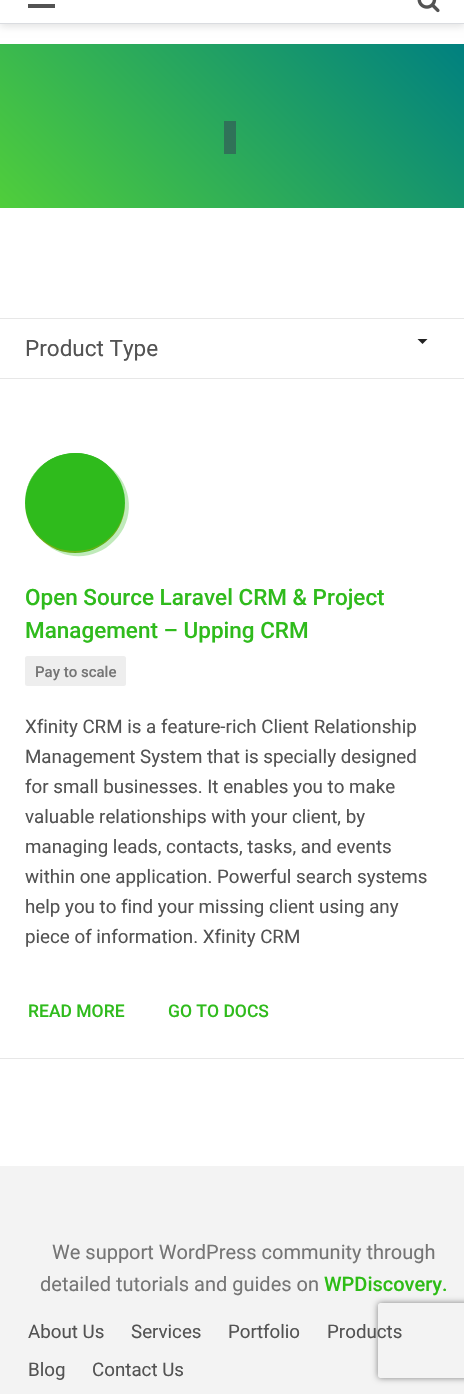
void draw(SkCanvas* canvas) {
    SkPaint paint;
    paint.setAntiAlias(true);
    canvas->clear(0xFFFFFFFF);
    paint.setColor(0x1F000000);
    paint.setMaskFilter(SkMaskFilter::MakeBlur(kNormal_SkBlurStyle, 4));
    canvas->drawRect(SkRect::MakeXYWH(0, -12, 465, 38), paint);
    paint.setMaskFilter(nullptr);
    paint.setColor(0xFFFFFFFF);
    canvas->drawRect(SkRect::MakeXYWH(0, 0, 464, 23), paint);
    paint.setColor(0xFFDADCE0);
    canvas->drawRect(SkRect::MakeXYWH(0, 23, 464, 1), paint);
    paint.setColor(0xFF535353);
    canvas->drawRect(SkRect::MakeXYWH(28, 4, 27, 4), paint);
    canvas->drawImageRect(SkImages::DeferredFromEncodedData(SkData::MakeFromFileName("img1.png")), SkRect::MakeXYWH(417, 0, 23, 13), SkSamplingOptions());
    {
        const SkColor colors[] = {0xFF50CE3B, 0xFF008080};
        const float stops[] = {0, 1};
        const SkPoint ends[] = {{75, 283}, {390, -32}};
        paint.setShader(SkGradientShader::MakeLinear(ends, colors, stops, 2, SkTileMode::kClamp));
        paint.setAlpha(255);
    }
    canvas->drawRect(SkRect::MakeXYWH(0, 44, 464, 164), paint);
    {
        const SkColor colors[] = {0xFF3D7F4D, 0xFF216465};
        const float stops[] = {0, 1};
        const SkPoint ends[] = {{75, 283}, {390, -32}};
        paint.setShader(SkGradientShader::MakeLinear(ends, colors, stops, 2, SkTileMode::kClamp));
        paint.setAlpha(255);
    }
    canvas->drawRect(SkRect::MakeXYWH(230, 121, 6, 33), paint);
    canvas->drawRect(SkRect::MakeXYWH(224, 121, 6, 33), paint);
    paint.setShader(nullptr);
    paint.setColor(0xFFE7E7E7);
    canvas->drawRect(SkRect::MakeXYWH(0, 318, 464, 1), paint);
    canvas->drawRect(SkRect::MakeXYWH(0, 378, 464, 1), paint);
    SkFont font1(fontMgr->matchFamilyStyle("Roboto", SkFontStyle::Normal()), 22.5f);
    font1.setSubpixel(true);
    paint.setColor(0xFF535353);
    canvas->drawString("Product Type", 25, 356, font1, paint);
    paint.setColor(0xFF222222);
    canvas->drawPath(SkPathBuilder().moveTo(417.5f, 339).lineTo(427.5f, 339).lineTo(422.5f, 344).close().detach(), paint);
    paint.setColor(0xFFE7E7E7);
    canvas->drawRect(SkRect::MakeXYWH(0, 1058, 464, 1), paint);
    paint.setColor(0xFFC0EABA);
    canvas->drawPath(SkPathBuilder().moveTo(44, 542).cubicTo(63, 561, 95, 561, 114, 541).cubicTo(136, 520, 133, 485, 110, 467).cubicTo(129, 486, 130, 518, 110, 538).cubicTo(93, 556, 64, 557, 44, 542).close().detach(), paint);
    paint.setColor(0xFF2FBB1C);
    canvas->drawCircle(75, 503, 50, paint);
    paint.setColor(0x4DFF8F00);
    canvas->drawPath(SkPathBuilder().moveTo(125, 502).cubicTo(124, 530, 103, 551, 75, 551).cubicTo(47, 551, 26, 530, 25, 502).cubicTo(25, 512, 28, 522, 34, 531).cubicTo(61, 572, 126, 551, 125, 502).close().detach(), paint);
    paint.setColor(0xFF2FBB1C);
    canvas->drawPath(SkPathBuilder().moveTo(75, 454).cubicTo(103, 454, 125, 476, 125, 503).cubicTo(125, 493, 122, 483, 116, 475).cubicTo(89, 434, 25, 454, 25, 503).cubicTo(25, 476, 47, 454, 75, 454).close().detach(), paint);
    SkFont font2(fontMgr->matchFamilyStyle("Roboto", SkFontStyle(500, SkFontStyle::kNormal_Width, SkFontStyle::kUpright_Slant)), 22.5f);
    font2.setSubpixel(true);
    canvas->drawString("Open Source Laravel CRM & Project", 25, 605, font2, paint);
    canvas->drawString("Management – Upping CRM", 25, 638, font2, paint);
    paint.setColor(0xFFEEEEEE);
    canvas->drawRoundRect(SkRect::MakeXYWH(25, 656, 101, 30), 2.5f, 2.5f, paint);
    SkFont font3(fontMgr->matchFamilyStyle("Roboto", SkFontStyle(500, SkFontStyle::kNormal_Width, SkFontStyle::kUpright_Slant)), 15);
    font3.setSubpixel(true);
    paint.setColor(0xFF757575);
    canvas->drawString("Pay to scale", 35, 677, font3, paint);
    SkFont font4(fontMgr->matchFamilyStyle("Roboto", SkFontStyle::Normal()), 18.75f);
    font4.setSubpixel(true);
    paint.setColor(0xFF535353);
    canvas->drawString("Xfinity CRM is a feature-rich Client Relationship", 25, 733, font4, paint);
    canvas->drawString("Management System that is specially designed", 25, 763, font4, paint);
    canvas->drawString("for small businesses. It enables you to make", 25, 793, font4, paint);
    canvas->drawString("valuable relationships with your client, by", 25, 823, font4, paint);
    canvas->drawString("managing leads, contacts, tasks, and events", 25, 853, font4, paint);
    canvas->drawString("within one application. Powerful search systems", 25, 883, font4, paint);
    canvas->drawString("help you to find your missing client using any", 25, 913, font4, paint);
    canvas->drawString("piece of information. Xfinity CRM", 25, 943, font4, paint);
    SkFont font5(fontMgr->matchFamilyStyle("Roboto", SkFontStyle(500, SkFontStyle::kNormal_Width, SkFontStyle::kUpright_Slant)), 17.5f);
    font5.setSubpixel(true);
    paint.setColor(0xFF2FBB1C);
    canvas->drawString("READ MORE", 28, 1017, font5, paint);
    canvas->drawString("GO TO DOCS", 168, 1017, font5, paint);
    paint.setColor(0xFFF3F3F3);
    canvas->drawRect(SkRect::MakeXYWH(0, 1166, 464, 228), paint);
    SkFont font6(fontMgr->matchFamilyStyle("Roboto", SkFontStyle::Normal()), 20);
    font6.setSubpixel(true);
    paint.setColor(0xFF757575);
    canvas->drawString("We support WordPress community through", 52, 1259, font6, paint);
    canvas->drawString("detailed tutorials and guides on", 40, 1291, font6, paint);
    canvas->save();
    canvas->clipPath(SkPathBuilder(SkPathFillType::kEvenOdd).moveTo(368, 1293).lineTo(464, 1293).lineTo(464, 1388).lineTo(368, 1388).close().moveTo(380.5f, 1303).lineTo(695.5f, 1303).cubicTo(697, 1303, 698, 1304, 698, 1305.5f).lineTo(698, 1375.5f).cubicTo(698, 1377, 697, 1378, 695.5f, 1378).lineTo(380.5f, 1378).cubicTo(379, 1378, 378, 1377, 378, 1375.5f).lineTo(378, 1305.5f).cubicTo(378, 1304, 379, 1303, 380.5f, 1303).close().detach(), true);
    paint.setColor(0xFF808080);
    paint.setMaskFilter(SkMaskFilter::MakeBlur(kNormal_SkBlurStyle, 3));
    canvas->drawRoundRect(SkRect::MakeXYWH(378, 1303, 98, 75), 2.5f, 2.5f, paint);
    paint.setMaskFilter(nullptr);
    canvas->restore();
    SkFont font7(fontMgr->matchFamilyStyle("Roboto", SkFontStyle(500, SkFontStyle::kNormal_Width, SkFontStyle::kUpright_Slant)), 20);
    font7.setSubpixel(true);
    paint.setColor(0xFF2DBC15);
    canvas->drawString("WPDiscovery.", 324, 1291, font7, paint);
    paint.setColor(0xFF535353);
    canvas->drawString("About Us", 28, 1338, font4, paint);
    canvas->drawString("Services", 131, 1338, font4, paint);
    canvas->drawString("Portfolio", 228, 1338, font4, paint);
    canvas->drawString("Products", 327, 1338, font4, paint);
    canvas->drawString("Blog", 28, 1376, font4, paint);
    canvas->drawString("Contact Us", 92, 1376, font4, paint);
}
